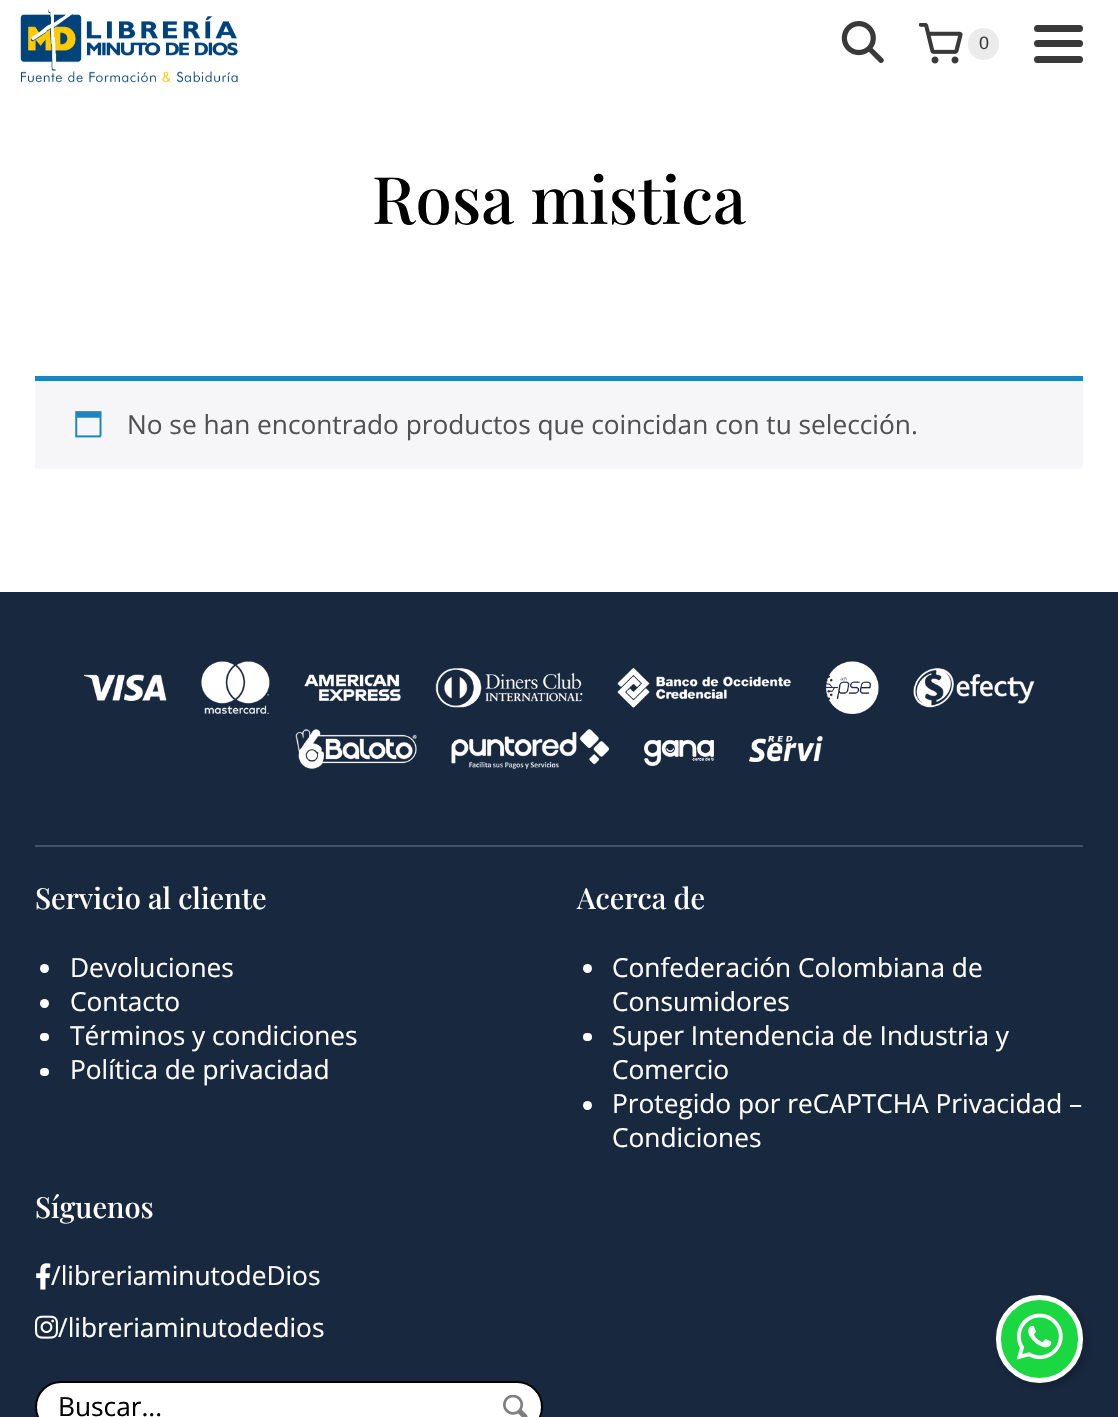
void draw(SkCanvas* canvas) {
    SkPaint paint;
    paint.setAntiAlias(true);
    canvas->clear(0xFFFFFFFF);
    canvas->drawImageRect(SkImages::DeferredFromEncodedData(SkData::MakeFromFileName("img1.png")), SkRect::MakeXYWH(20, 9, 218, 74), SkSamplingOptions());
    canvas->drawImageRect(SkImages::DeferredFromEncodedData(SkData::MakeFromFileName("img2.png")), SkRect::MakeXYWH(841, 21, 43, 42), SkSamplingOptions());
    canvas->drawImageRect(SkImages::DeferredFromEncodedData(SkData::MakeFromFileName("img3.png")), SkRect::MakeXYWH(919, 23, 44, 41), SkSamplingOptions());
    paint.setColor(0xFFEBEBEB);
    canvas->drawRoundRect(SkRect::MakeXYWH(968, 28, 31, 32), 15.5f, 15.5f, paint);
    SkFont font1(fontMgr->matchFamilyStyle("Liberation Sans", SkFontStyle::Normal()), 18);
    font1.setSubpixel(true);
    paint.setColor(0xFF3A3939);
    canvas->drawString("0", 979, 49, font1, paint);
    canvas->drawRoundRect(SkRect::MakeXYWH(1034, 25, 49, 7), 3.5f, 3.5f, paint);
    canvas->drawRoundRect(SkRect::MakeXYWH(1034, 40, 49, 7), 3.5f, 3.5f, paint);
    canvas->drawRoundRect(SkRect::MakeXYWH(1034, 56, 49, 7), 3.5f, 3.5f, paint);
    SkFont font2(fontMgr->matchFamilyStyle("Playfair Display", SkFontStyle(500, SkFontStyle::kNormal_Width, SkFontStyle::kUpright_Slant)), 65.5f);
    font2.setSubpixel(true);
    paint.setColor(0xFF000000);
    canvas->drawString("Rosa mistica", 372, 224, font2, paint);
    paint.setColor(0xFFF6F5F8);
    canvas->drawRect(SkRect::MakeXYWH(35, 381, 1048, 88), paint);
    paint.setColor(0xFF1E85BE);
    canvas->drawRect(SkRect::MakeXYWH(35, 376, 1048, 5), paint);
    canvas->drawImageRect(SkImages::DeferredFromEncodedData(SkData::MakeFromFileName("img4.png")), SkRect::MakeXYWH(75, 411, 27, 27), SkSamplingOptions());
    SkFont font3(fontMgr->matchFamilyStyle("Open Sans", SkFontStyle::Normal()), 26.25f);
    font3.setSubpixel(true);
    paint.setColor(0xFF515151);
    canvas->drawString("No se han encontrado productos que coincidan con tu selección.", 127, 434, font3, paint);
    paint.setColor(0xFF18283F);
    canvas->drawRect(SkRect::MakeXYWH(0, 592, 1118, 825), paint);
    canvas->drawImageRect(SkImages::DeferredFromEncodedData(SkData::MakeFromFileName("img5.png")), SkRect::MakeXYWH(84, 674, 83, 27), SkSamplingOptions());
    canvas->drawImageRect(SkImages::DeferredFromEncodedData(SkData::MakeFromFileName("img6.png")), SkRect::MakeXYWH(201, 661, 69, 53), SkSamplingOptions());
    canvas->drawImageRect(SkImages::DeferredFromEncodedData(SkData::MakeFromFileName("img7.png")), SkRect::MakeXYWH(304, 674, 97, 27), SkSamplingOptions());
    canvas->drawImageRect(SkImages::DeferredFromEncodedData(SkData::MakeFromFileName("img8.png")), SkRect::MakeXYWH(435, 668, 148, 40), SkSamplingOptions());
    canvas->drawImageRect(SkImages::DeferredFromEncodedData(SkData::MakeFromFileName("img9.png")), SkRect::MakeXYWH(617, 668, 174, 40), SkSamplingOptions());
    canvas->drawImageRect(SkImages::DeferredFromEncodedData(SkData::MakeFromFileName("img10.png")), SkRect::MakeXYWH(826, 661, 53, 53), SkSamplingOptions());
    canvas->drawImageRect(SkImages::DeferredFromEncodedData(SkData::MakeFromFileName("img11.png")), SkRect::MakeXYWH(913, 668, 122, 40), SkSamplingOptions());
    canvas->drawImageRect(SkImages::DeferredFromEncodedData(SkData::MakeFromFileName("img12.png")), SkRect::MakeXYWH(295, 729, 122, 40), SkSamplingOptions());
    canvas->drawImageRect(SkImages::DeferredFromEncodedData(SkData::MakeFromFileName("img13.png")), SkRect::MakeXYWH(451, 729, 158, 40), SkSamplingOptions());
    canvas->drawImageRect(SkImages::DeferredFromEncodedData(SkData::MakeFromFileName("img14.png")), SkRect::MakeXYWH(644, 740, 70, 26), SkSamplingOptions());
    canvas->drawImageRect(SkImages::DeferredFromEncodedData(SkData::MakeFromFileName("img15.png")), SkRect::MakeXYWH(749, 736, 74, 26), SkSamplingOptions());
    paint.setColor(0xFF465365);
    canvas->drawRect(SkRect::MakeXYWH(35, 845, 1048, 2), paint);
    SkFont font4(fontMgr->matchFamilyStyle("Playfair Display", SkFontStyle(500, SkFontStyle::kNormal_Width, SkFontStyle::kUpright_Slant)), 29);
    font4.setSubpixel(true);
    paint.setColor(0xFFFFFFFF);
    canvas->drawString("Servicio al cliente", 35, 909, font4, paint);
    canvas->drawCircle(44.5f, 968.5f, 4.5f, paint);
    canvas->drawString("Devoluciones", 70, 977, font3, paint);
    canvas->drawCircle(44.5f, 1003.5f, 4.5f, paint);
    canvas->drawString("Contacto", 70, 1011, font3, paint);
    canvas->drawRoundRect(SkRect::MakeXYWH(40, 1033, 9, 8), 4, 4, paint);
    canvas->drawString("Términos y condiciones", 70, 1045, font3, paint);
    canvas->drawRoundRect(SkRect::MakeXYWH(40, 1068, 9, 8), 4, 4, paint);
    canvas->drawString("Política de privacidad", 70, 1079, font3, paint);
    canvas->drawString("Acerca de", 577, 909, font4, paint);
    canvas->drawCircle(587.5f, 968.5f, 4.5f, paint);
    canvas->drawString("Confederación Colombiana de", 612, 977, font3, paint);
    canvas->drawString("Consumidores", 612, 1011, font3, paint);
    canvas->drawRoundRect(SkRect::MakeXYWH(583, 1033, 9, 8), 4, 4, paint);
    canvas->drawString("Super Intendencia de Industria y", 612, 1045, font3, paint);
    canvas->drawString("Comercio", 612, 1079, font3, paint);
    canvas->drawCircle(587.5f, 1105.5f, 4.5f, paint);
    canvas->drawString("Protegido por reCAPTCHA Privacidad –", 612, 1113, font3, paint);
    canvas->drawString("Condiciones", 612, 1147, font3, paint);
    canvas->drawString("Síguenos", 35, 1218, font4, paint);
    canvas->drawImageRect(SkImages::DeferredFromEncodedData(SkData::MakeFromFileName("img16.png")), SkRect::MakeXYWH(36, 1263, 15, 27), SkSamplingOptions());
    canvas->drawString("/libreriaminutodeDios", 51, 1285, font3, paint);
    canvas->drawImageRect(SkImages::DeferredFromEncodedData(SkData::MakeFromFileName("img17.png")), SkRect::MakeXYWH(35, 1315, 23, 24), SkSamplingOptions());
    canvas->drawString("/libreriaminutodedios", 58, 1337, font3, paint);
    canvas->drawRoundRect(SkRect::MakeXYWH(36, 1382, 506, 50), 25, 25, paint);
    paint.setStyle(SkPaint::kStroke_Style);
    paint.setStrokeWidth(2);
    paint.setColor(0xFF000000);
    canvas->drawRoundRect(SkRect::MakeXYWH(36, 1382, 506, 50), 25, 25, paint);
    paint.setStyle(SkPaint::kFill_Style);
    canvas->drawString("Buscar...", 58, 1416, font3, paint);
    canvas->drawImageRect(SkImages::DeferredFromEncodedData(SkData::MakeFromFileName("img18.png")), SkRect::MakeXYWH(503, 1395, 25, 22), SkSamplingOptions());
    paint.setColor(0x33000000);
    paint.setMaskFilter(SkMaskFilter::MakeBlur(kNormal_SkBlurStyle, 5));
    canvas->drawRoundRect(SkRect::MakeXYWH(999, 1299, 88, 87), 43.5f, 43.5f, paint);
    paint.setMaskFilter(nullptr);
    paint.setColor(0xFF1BD741);
    canvas->drawRoundRect(SkRect::MakeXYWH(998.5f, 1297.5f, 82, 83), 41, 41, paint);
    paint.setStyle(SkPaint::kStroke_Style);
    paint.setStrokeWidth(5);
    paint.setColor(0xFFFFFFFF);
    canvas->drawRoundRect(SkRect::MakeXYWH(998.5f, 1297.5f, 82, 83), 41, 41, paint);
    canvas->drawImageRect(SkImages::DeferredFromEncodedData(SkData::MakeFromFileName("img19.png")), SkRect::MakeXYWH(1016, 1313, 47, 47), SkSamplingOptions());
}
